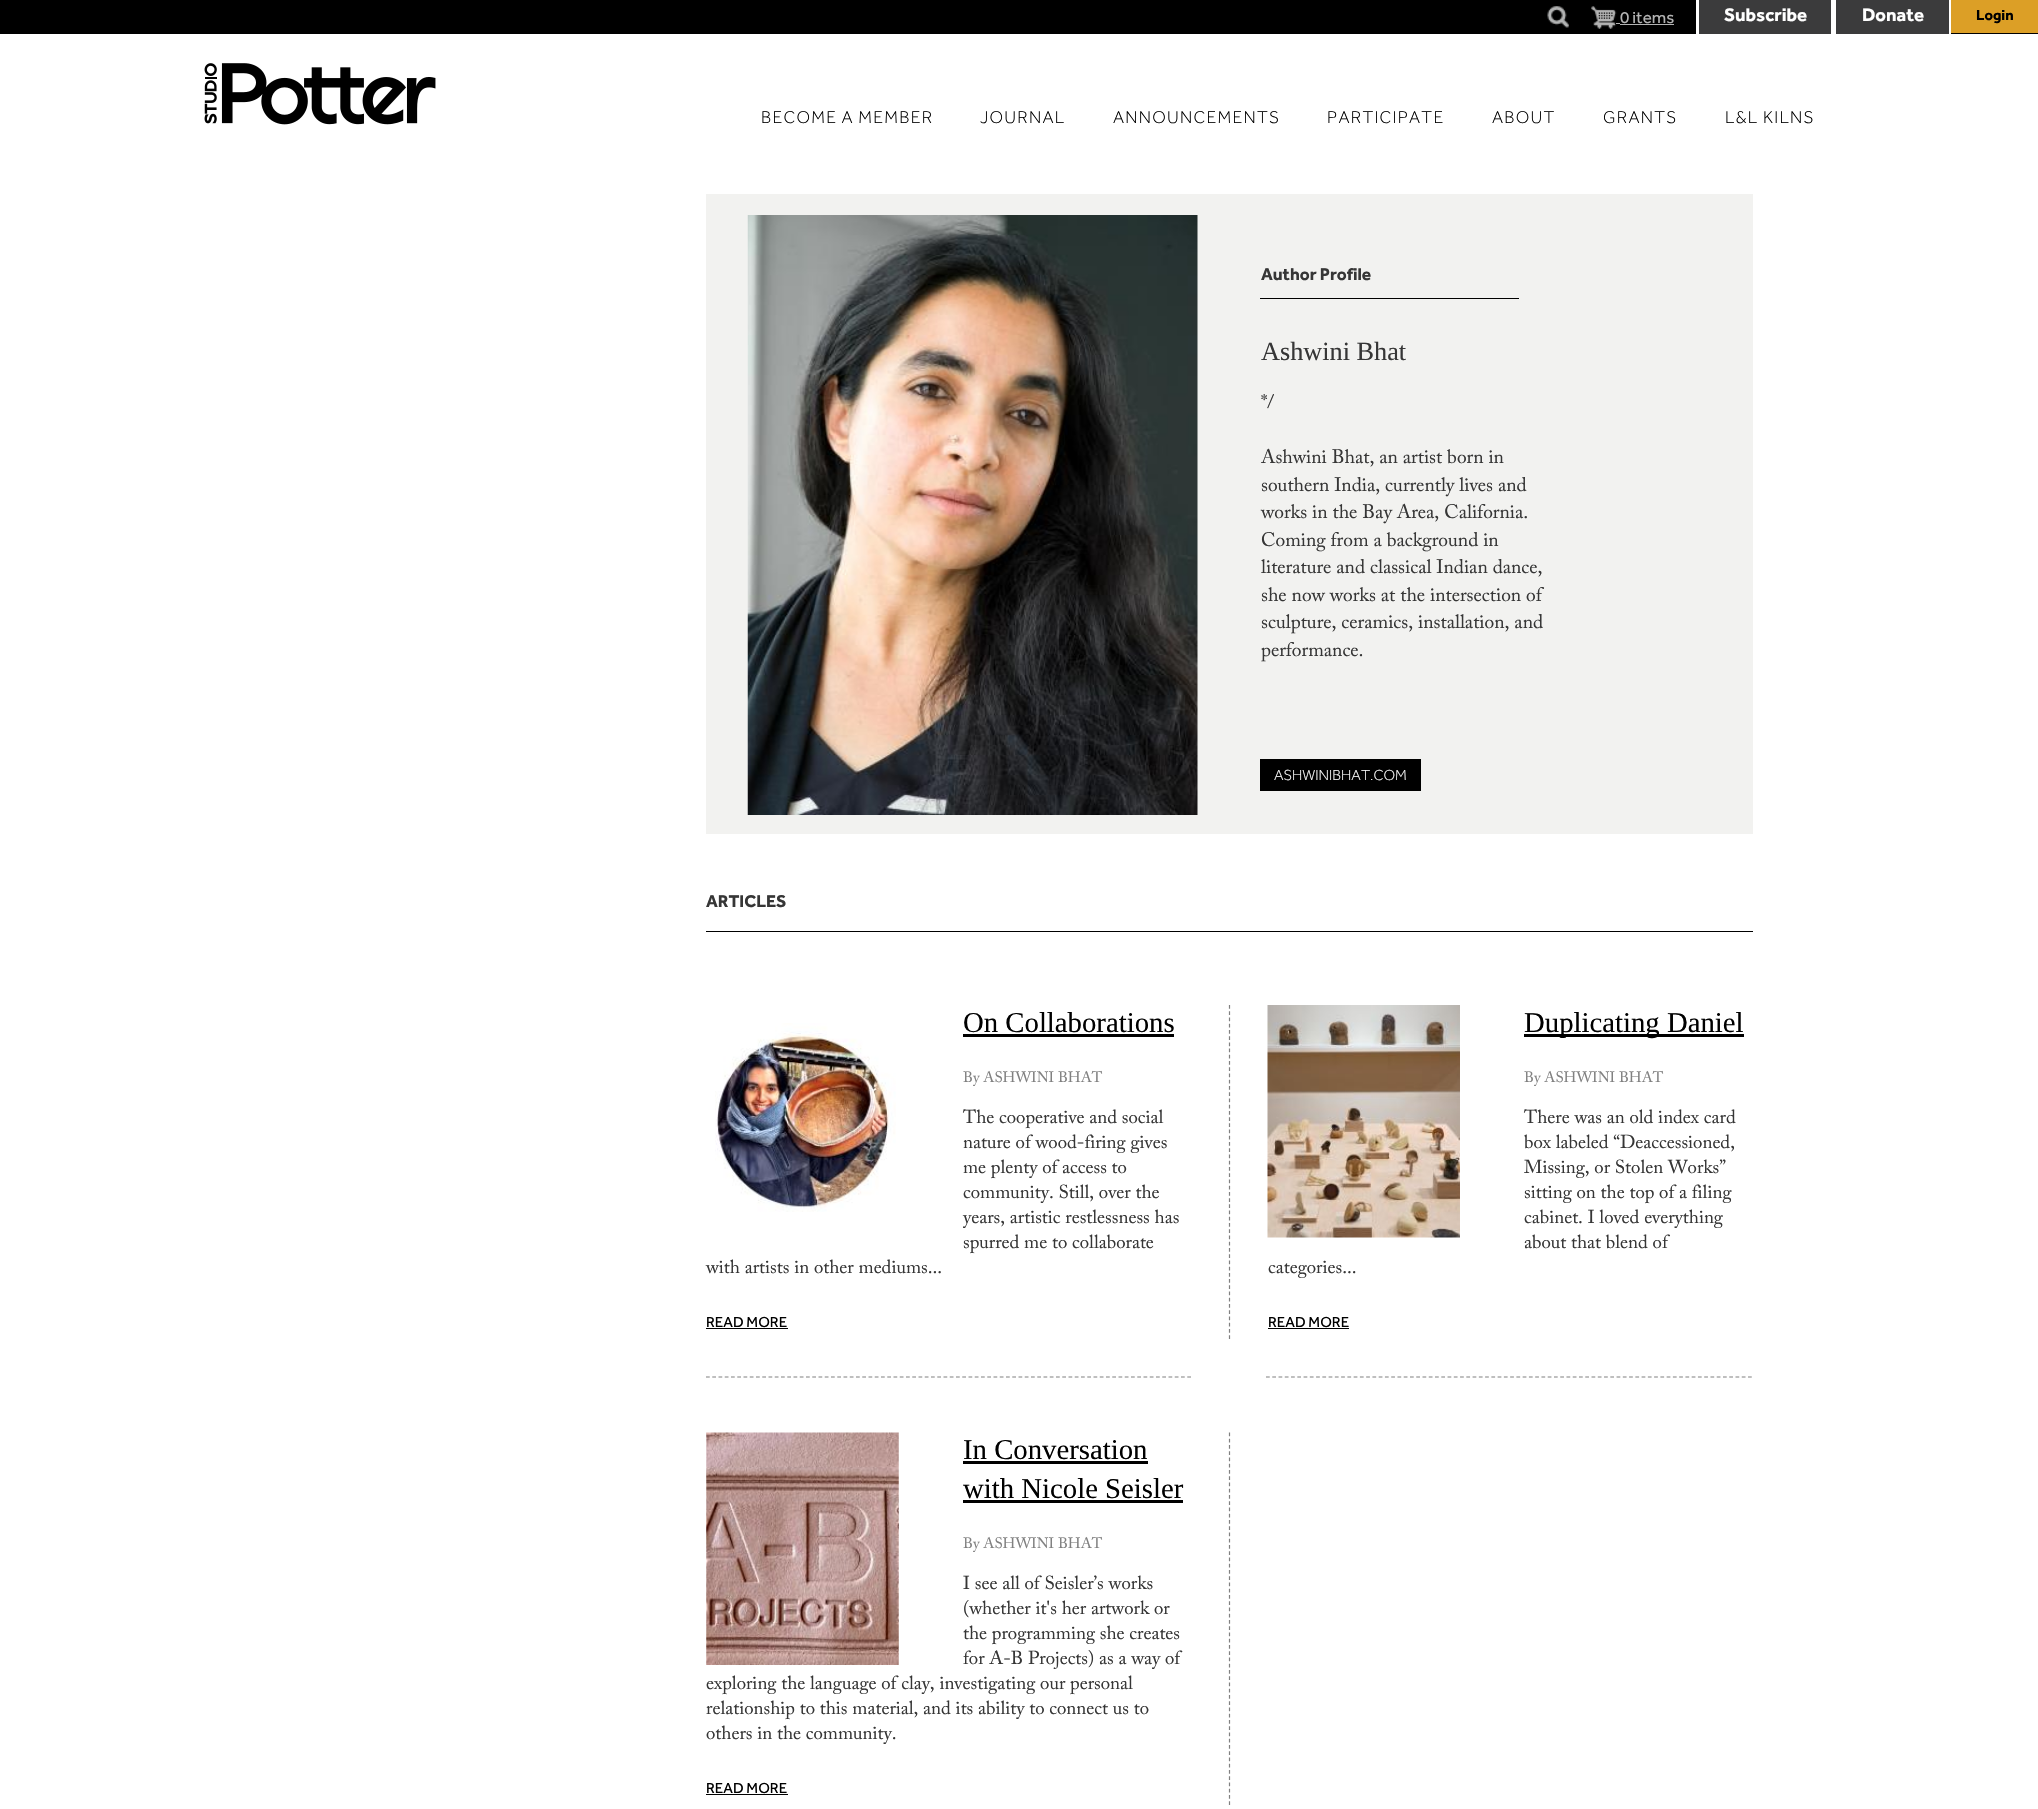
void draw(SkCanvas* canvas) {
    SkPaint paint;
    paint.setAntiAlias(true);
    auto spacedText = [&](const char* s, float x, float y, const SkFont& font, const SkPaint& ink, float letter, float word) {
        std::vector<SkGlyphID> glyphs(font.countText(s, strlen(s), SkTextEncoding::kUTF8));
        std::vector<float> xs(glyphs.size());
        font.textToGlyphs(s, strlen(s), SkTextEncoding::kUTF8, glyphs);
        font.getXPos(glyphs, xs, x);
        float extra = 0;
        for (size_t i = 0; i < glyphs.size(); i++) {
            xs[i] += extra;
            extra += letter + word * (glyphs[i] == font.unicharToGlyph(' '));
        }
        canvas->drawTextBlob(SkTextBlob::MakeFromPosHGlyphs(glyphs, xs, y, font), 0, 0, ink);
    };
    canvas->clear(0xFFFFFFFF);
    paint.setColor(0xFF000000);
    canvas->drawRect(SkRect::MakeXYWH(0, 0, 1696, 34), paint);
    canvas->drawImageRect(SkImages::DeferredFromEncodedData(SkData::MakeFromFileName("img1.png")), SkRect::MakeXYWH(1547, 6, 22, 22), SkSamplingOptions());
    canvas->drawImageRect(SkImages::DeferredFromEncodedData(SkData::MakeFromFileName("img2.png")), SkRect::MakeXYWH(1591, 6, 26, 23), SkSamplingOptions());
    paint.setColor(0xFFB3B3B3);
    canvas->drawRect(SkRect::MakeXYWH(1616, 23, 4, 1), paint);
    SkFont font1(fontMgr->matchFamilyStyle("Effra", SkFontStyle::Normal()), 17);
    font1.setSubpixel(true);
    canvas->drawString("0 items", 1620, 23, font1, paint);
    canvas->drawRect(SkRect::MakeXYWH(1620, 24, 54, 1), paint);
    paint.setColor(0xFF3B3B3C);
    canvas->drawRect(SkRect::MakeXYWH(1699, 0, 132, 34), paint);
    SkFont font2(fontMgr->matchFamilyStyle("Effra", SkFontStyle::Bold()), 18.75f);
    font2.setSubpixel(true);
    paint.setColor(0xFFFFFFFF);
    canvas->drawString("Subscribe", 1724, 21, font2, paint);
    paint.setColor(0xFF3B3B3C);
    canvas->drawRect(SkRect::MakeXYWH(1836, 0, 113, 34), paint);
    paint.setColor(0xFFFFFFFF);
    canvas->drawString("Donate", 1862, 21, font2, paint);
    paint.setColor(0xFFDC9F26);
    canvas->drawRect(SkRect::MakeXYWH(1951, 0, 87, 33), paint);
    paint.setColor(0xFF000000);
    canvas->drawRect(SkRect::MakeXYWH(1951, 33, 87, 1), paint);
    SkFont font3(fontMgr->matchFamilyStyle("Effra", SkFontStyle::Bold()), 15);
    font3.setSubpixel(true);
    canvas->drawString("Login", 1976, 20, font3, paint);
    canvas->drawImageRect(SkImages::DeferredFromEncodedData(SkData::MakeFromFileName("img3.png")), SkRect::MakeXYWH(204, 63, 232, 62), SkSamplingOptions());
    SkFont font4(fontMgr->matchFamilyStyle("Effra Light", SkFontStyle(300, SkFontStyle::kNormal_Width, SkFontStyle::kUpright_Slant)), 17.5f);
    font4.setSubpixel(true);
    spacedText("BECOME A MEMBER", 761, 123, font4, paint, 1.25f, 0);
    spacedText("JOURNAL", 980, 123, font4, paint, 1.25f, 0);
    spacedText("ANNOUNCEMENTS", 1113, 123, font4, paint, 1.25f, 0);
    spacedText("PARTICIPATE", 1327, 123, font4, paint, 1.25f, 0);
    spacedText("ABOUT", 1492, 123, font4, paint, 1.25f, 0);
    spacedText("GRANTS", 1603, 123, font4, paint, 1.25f, 0);
    spacedText("L&L KILNS", 1725, 123, font4, paint, 1.25f, 0);
    paint.setColor(0xFFF2F2F0);
    canvas->drawRect(SkRect::MakeXYWH(706, 194, 1047, 640), paint);
    canvas->drawImageRect(SkImages::DeferredFromEncodedData(SkData::MakeFromFileName("img4.png")), SkRect::MakeXYWH(747, 215, 451, 600), SkSamplingOptions());
    paint.setColor(0xFF000000);
    canvas->drawRect(SkRect::MakeXYWH(1260, 298, 259, 1), paint);
    SkFont font5(fontMgr->matchFamilyStyle("Effra", SkFontStyle::Bold()), 17.5f);
    font5.setSubpixel(true);
    paint.setColor(0xFF363636);
    canvas->drawString("Author Profile", 1261, 280, font5, paint);
    SkFont font6(fontMgr->matchFamilyStyle("Liberation Serif", SkFontStyle::Normal()), 26.25f);
    font6.setSubpixel(true);
    canvas->drawString("Ashwini Bhat", 1261, 360, font6, paint);
    SkFont font7(fontMgr->matchFamilyStyle("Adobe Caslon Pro", SkFontStyle::Normal()), 19.4f);
    font7.setSubpixel(true);
    canvas->drawString("*/", 1261, 408, font7, paint);
    canvas->drawString("Ashwini Bhat, an artist born in", 1261, 463, font7, paint);
    canvas->drawString("southern India, currently lives and", 1261, 491, font7, paint);
    canvas->drawString("works in the Bay Area, California.", 1261, 518, font7, paint);
    canvas->drawString("Coming from a background in", 1261, 546, font7, paint);
    canvas->drawString("literature and classical Indian dance,", 1261, 573, font7, paint);
    canvas->drawString("she now works at the intersection of", 1261, 601, font7, paint);
    canvas->drawString("sculpture, ceramics, installation, and", 1261, 628, font7, paint);
    canvas->drawString("performance.", 1261, 656, font7, paint);
    paint.setColor(0xFF000000);
    canvas->drawRect(SkRect::MakeXYWH(1260, 759, 161, 32), paint);
    SkFont font8(fontMgr->matchFamilyStyle("Effra Light", SkFontStyle(300, SkFontStyle::kNormal_Width, SkFontStyle::kUpright_Slant)), 15);
    font8.setSubpixel(true);
    paint.setColor(0xFFFFFFFF);
    canvas->drawString("ASHWINIBHAT.COM", 1274, 780, font8, paint);
    paint.setColor(0xFF000000);
    canvas->drawRect(SkRect::MakeXYWH(706, 931, 1047, 1), paint);
    paint.setColor(0xFF363636);
    canvas->drawString("ARTICLES", 706, 907, font5, paint);
    canvas->drawImageRect(SkImages::DeferredFromEncodedData(SkData::MakeFromFileName("img5.png")), SkRect::MakeXYWH(715, 1023, 181, 189), SkSamplingOptions());
    SkFont font9(fontMgr->matchFamilyStyle("Liberation Serif", SkFontStyle::Normal()), 28.75f);
    font9.setSubpixel(true);
    paint.setColor(0xFF000000);
    canvas->drawString("On Collaborations", 963, 1032, font9, paint);
    canvas->drawRect(SkRect::MakeXYWH(963, 1034, 211, 3), paint);
    SkFont font10(fontMgr->matchFamilyStyle("Adobe Caslon Pro", SkFontStyle::Normal()), 15);
    font10.setSubpixel(true);
    paint.setColor(0xFF808080);
    canvas->drawString("By ASHWINI BHAT", 963, 1082, font10, paint);
    SkFont font11(fontMgr->matchFamilyStyle("Adobe Caslon Pro", SkFontStyle::Normal()), 18.75f);
    font11.setSubpixel(true);
    paint.setColor(0xFF363636);
    canvas->drawString("The cooperative and social", 963, 1123, font11, paint);
    canvas->drawString("nature of wood-firing gives", 963, 1148, font11, paint);
    canvas->drawString("me plenty of access to", 963, 1173, font11, paint);
    canvas->drawString("community. Still, over the", 963, 1198, font11, paint);
    canvas->drawString("years, artistic restlessness has", 963, 1223, font11, paint);
    canvas->drawString("spurred me to collaborate", 963, 1248, font11, paint);
    canvas->drawString("with artists in other mediums...", 706, 1273, font11, paint);
    SkFont font12(fontMgr->matchFamilyStyle("Effra", SkFontStyle::Normal()), 15);
    font12.setSubpixel(true);
    paint.setColor(0xFF000000);
    canvas->drawString("READ MORE", 706, 1327, font12, paint);
    canvas->drawRect(SkRect::MakeXYWH(706, 1328, 82, 1), paint);
    paint.setStyle(SkPaint::kStroke_Style);
    paint.setStrokeWidth(1.2f);
    paint.setColor(0xFF808080);
    paint.setPathEffect(SkDashPathEffect::Make({{3.75f, 2.48f}}, 0));
    canvas->drawPath(SkPathBuilder().moveTo(1229.5f, 1005).lineTo(1229.5f, 1339).detach(), paint);
    paint.setPathEffect(nullptr);
    canvas->drawImageRect(SkImages::DeferredFromEncodedData(SkData::MakeFromFileName("img6.png")), SkRect::MakeXYWH(1267, 1005, 193, 233), SkSamplingOptions());
    paint.setStyle(SkPaint::kFill_Style);
    paint.setColor(0xFF000000);
    canvas->drawRect(SkRect::MakeXYWH(1524, 1034, 220, 3), paint);
    canvas->drawString("Duplicating Daniel", 1524, 1032, font9, paint);
    paint.setColor(0xFF808080);
    canvas->drawString("By ASHWINI BHAT", 1524, 1082, font10, paint);
    paint.setColor(0xFF363636);
    canvas->drawString("There was an old index card", 1524, 1123, font11, paint);
    canvas->drawString("box labeled “Deaccessioned,", 1524, 1148, font11, paint);
    canvas->drawString("Missing, or Stolen Works”", 1524, 1173, font11, paint);
    canvas->drawString("sitting on the top of a filing", 1524, 1198, font11, paint);
    canvas->drawString("cabinet. I loved everything", 1524, 1223, font11, paint);
    canvas->drawString("about that blend of", 1524, 1248, font11, paint);
    canvas->drawString("categories...", 1268, 1273, font11, paint);
    paint.setColor(0xFF000000);
    canvas->drawString("READ MORE", 1268, 1327, font12, paint);
    canvas->drawRect(SkRect::MakeXYWH(1268, 1328, 81, 1), paint);
    paint.setStyle(SkPaint::kStroke_Style);
    paint.setColor(0xFF808080);
    paint.setPathEffect(SkDashPathEffect::Make({{3.75f, 2.5f}}, 0));
    canvas->drawPath(SkPathBuilder().moveTo(706, 1377).lineTo(1191, 1377).detach(), paint);
    paint.setPathEffect(nullptr);
    paint.setPathEffect(SkDashPathEffect::Make({{3.75f, 2.51f}}, 0));
    canvas->drawPath(SkPathBuilder().moveTo(1266, 1377).lineTo(1752.5f, 1377).detach(), paint);
    paint.setPathEffect(nullptr);
    canvas->drawImageRect(SkImages::DeferredFromEncodedData(SkData::MakeFromFileName("img7.png")), SkRect::MakeXYWH(706, 1432, 193, 233), SkSamplingOptions());
    paint.setStyle(SkPaint::kFill_Style);
    paint.setColor(0xFF000000);
    canvas->drawString("In Conversation", 963, 1459, font9, paint);
    canvas->drawRect(SkRect::MakeXYWH(963, 1461, 185, 3), paint);
    canvas->drawString("with Nicole Seisler", 963, 1498, font9, paint);
    canvas->drawRect(SkRect::MakeXYWH(963, 1500, 220, 3), paint);
    paint.setColor(0xFF808080);
    canvas->drawString("By ASHWINI BHAT", 963, 1548, font10, paint);
    paint.setColor(0xFF363636);
    canvas->drawString("I see all of Seisler’s works", 963, 1589, font11, paint);
    canvas->drawString("(whether it's her artwork or", 963, 1614, font11, paint);
    canvas->drawString("the programming she creates", 963, 1639, font11, paint);
    canvas->drawString("for A-B Projects) as a way of", 963, 1664, font11, paint);
    canvas->drawString("exploring the language of clay, investigating our personal", 706, 1689, font11, paint);
    canvas->drawString("relationship to this material, and its ability to connect us to", 706, 1714, font11, paint);
    canvas->drawString("others in the community.", 706, 1739, font11, paint);
    paint.setColor(0xFF000000);
    canvas->drawString("READ MORE", 706, 1793, font12, paint);
    canvas->drawRect(SkRect::MakeXYWH(706, 1794, 82, 1), paint);
    paint.setStyle(SkPaint::kStroke_Style);
    paint.setColor(0xFF808080);
    paint.setPathEffect(SkDashPathEffect::Make({{3.75f, 2.5f}}, 0));
    canvas->drawPath(SkPathBuilder().moveTo(1229.5f, 1432.5f).lineTo(1229.5f, 1805).detach(), paint);
    paint.setPathEffect(nullptr);
}
